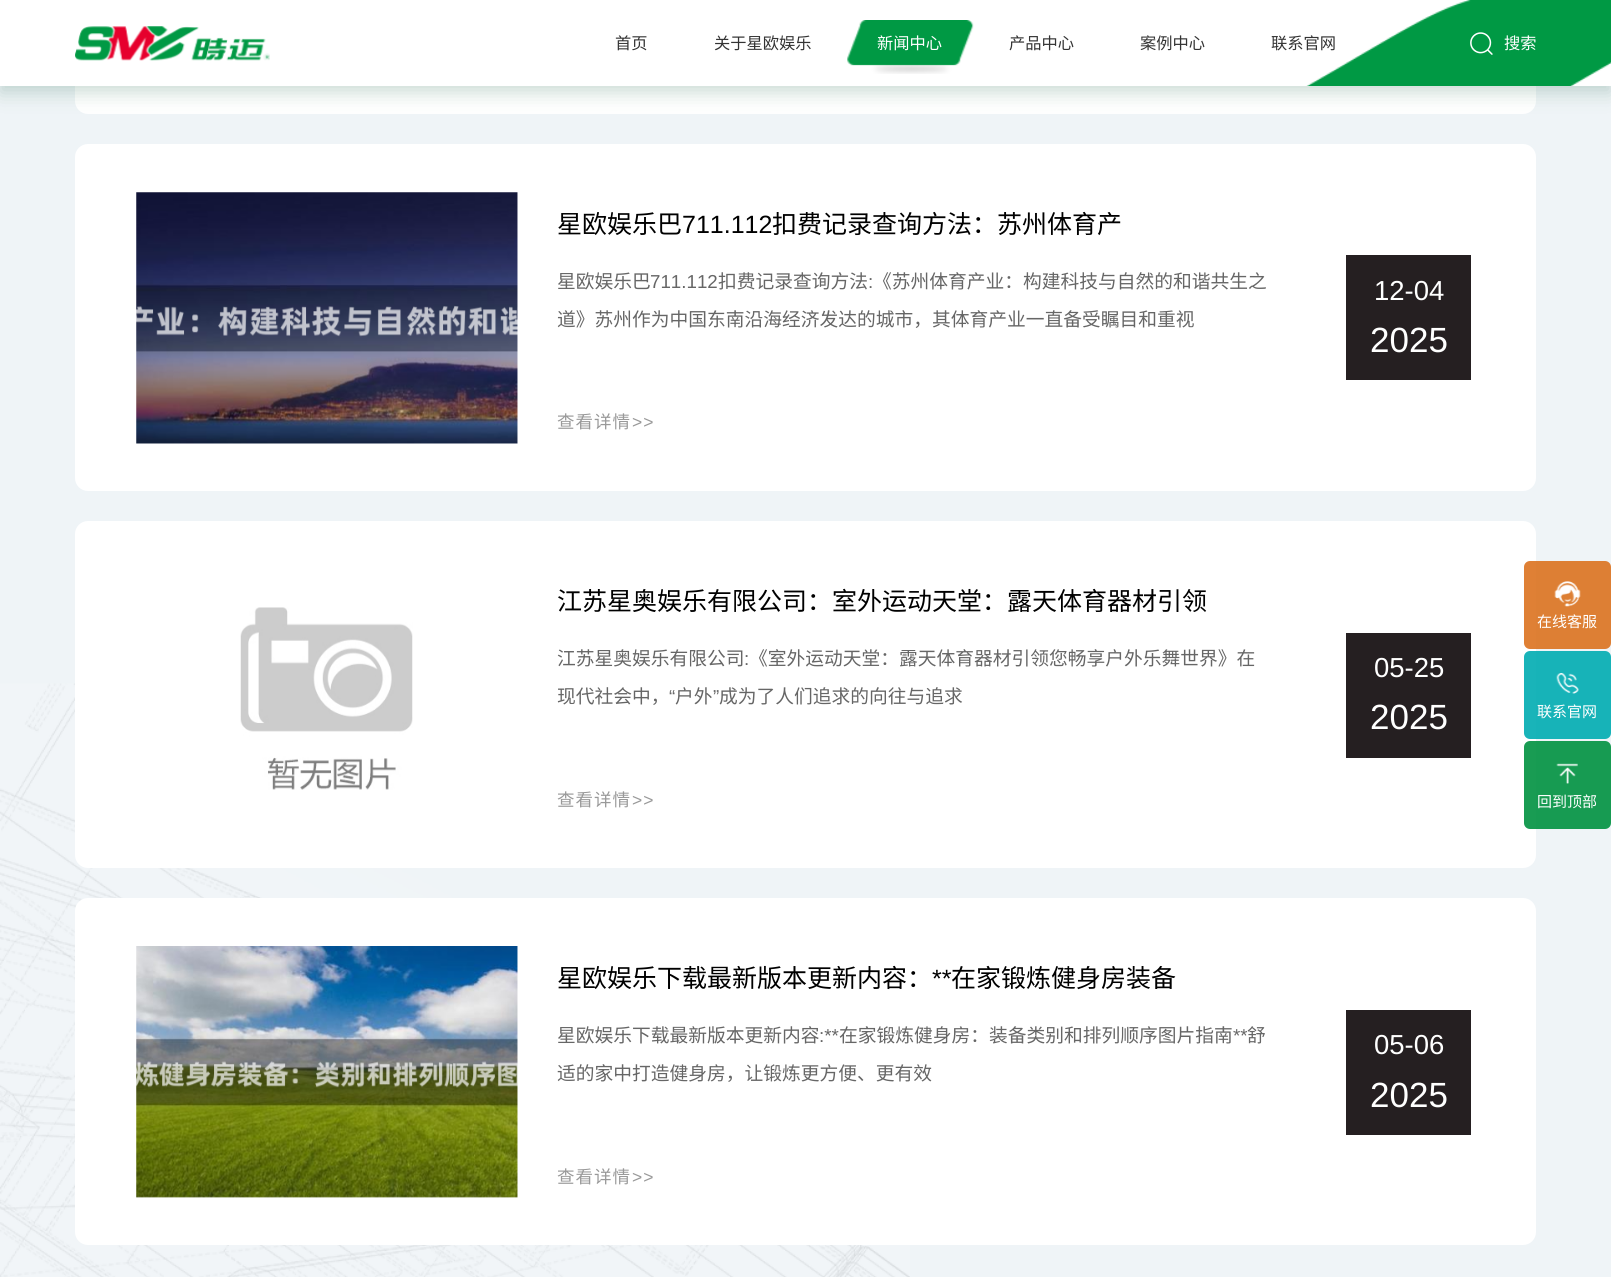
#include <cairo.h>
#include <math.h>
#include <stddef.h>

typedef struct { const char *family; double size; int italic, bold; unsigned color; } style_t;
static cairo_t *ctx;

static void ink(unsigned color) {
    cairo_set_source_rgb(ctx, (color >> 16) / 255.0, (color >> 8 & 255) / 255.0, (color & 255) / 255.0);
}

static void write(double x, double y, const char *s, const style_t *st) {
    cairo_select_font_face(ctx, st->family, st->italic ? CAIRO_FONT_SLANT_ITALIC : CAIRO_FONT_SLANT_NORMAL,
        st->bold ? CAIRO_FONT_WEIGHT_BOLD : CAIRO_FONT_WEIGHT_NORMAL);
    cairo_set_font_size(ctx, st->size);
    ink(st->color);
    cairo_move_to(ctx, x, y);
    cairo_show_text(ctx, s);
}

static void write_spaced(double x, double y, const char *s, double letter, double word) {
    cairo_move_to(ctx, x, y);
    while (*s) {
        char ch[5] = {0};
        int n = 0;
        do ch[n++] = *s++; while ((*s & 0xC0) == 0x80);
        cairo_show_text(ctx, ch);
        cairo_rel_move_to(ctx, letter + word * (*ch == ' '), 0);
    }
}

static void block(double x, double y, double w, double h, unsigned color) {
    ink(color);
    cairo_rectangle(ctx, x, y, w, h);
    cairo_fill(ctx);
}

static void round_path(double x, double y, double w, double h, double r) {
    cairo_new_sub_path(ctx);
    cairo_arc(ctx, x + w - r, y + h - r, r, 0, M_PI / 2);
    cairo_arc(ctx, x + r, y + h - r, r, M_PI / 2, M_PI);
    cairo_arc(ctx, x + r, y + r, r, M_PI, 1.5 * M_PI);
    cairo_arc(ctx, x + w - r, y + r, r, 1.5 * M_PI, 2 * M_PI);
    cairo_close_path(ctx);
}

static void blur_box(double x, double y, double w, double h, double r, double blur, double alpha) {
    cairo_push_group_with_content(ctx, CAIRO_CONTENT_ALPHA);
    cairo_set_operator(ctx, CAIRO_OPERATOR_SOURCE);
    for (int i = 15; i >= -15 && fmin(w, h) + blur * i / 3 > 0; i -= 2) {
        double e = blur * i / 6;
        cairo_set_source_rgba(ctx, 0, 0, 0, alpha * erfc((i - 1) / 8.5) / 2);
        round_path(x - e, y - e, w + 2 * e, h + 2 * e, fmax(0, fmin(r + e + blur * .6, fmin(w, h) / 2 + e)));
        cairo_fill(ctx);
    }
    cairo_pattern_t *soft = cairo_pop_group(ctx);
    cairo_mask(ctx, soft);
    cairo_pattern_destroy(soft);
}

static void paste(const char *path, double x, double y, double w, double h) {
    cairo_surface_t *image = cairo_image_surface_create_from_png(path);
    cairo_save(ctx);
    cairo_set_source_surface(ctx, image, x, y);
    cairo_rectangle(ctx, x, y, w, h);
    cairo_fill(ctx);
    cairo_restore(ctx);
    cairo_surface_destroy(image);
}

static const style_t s1 = {"Noto Sans CJK SC", 16.25, 0, 0, 0x333333};
static const style_t s2 = {"Noto Sans CJK SC", 16.25, 0, 0, 0xffffff};
static const style_t s3 = {"Noto Sans CJK SC", 25, 0, 0, 0x000000};
static const style_t s4 = {"Liberation Sans", 25, 0, 0, 0x000000};
static const style_t s5 = {"Noto Sans CJK SC", 18.75, 0, 0, 0x666666};
static const style_t s6 = {"Liberation Sans", 18.75, 0, 0, 0x666666};
static const style_t s7 = {"Liberation Sans", 27.5, 0, 0, 0xffffff};
static const style_t s8 = {"Liberation Sans", 35, 0, 0, 0xffffff};
static const style_t s9 = {"Noto Sans CJK SC", 15, 0, 0, 0xffffff};

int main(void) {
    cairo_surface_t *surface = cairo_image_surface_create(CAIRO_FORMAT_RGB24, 1611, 1277);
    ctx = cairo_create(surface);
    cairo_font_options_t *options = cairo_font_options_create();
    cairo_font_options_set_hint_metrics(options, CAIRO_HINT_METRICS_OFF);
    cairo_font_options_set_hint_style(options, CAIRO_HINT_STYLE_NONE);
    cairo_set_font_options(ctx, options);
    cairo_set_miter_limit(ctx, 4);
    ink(0xeff4f7);
    cairo_paint(ctx);
    ink(0xffffff);
    round_path(75, -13, 1461, 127, 13);
    cairo_fill(ctx);
    ink(0x01522e);
    blur_box(0, 6, 1611, 87, 0, 9.5, 0.2);
    block(0, 0, 1611, 86, 0xffffff);
    paste("pic1.png", 75, 26, 195, 35);
    paste("pic2.png", 1306, 0, 305, 86);
    write(615, 49, "首页", &s1);
    write(714, 49, "关于星欧娱乐", &s1);
    paste("pic3.png", 847, 20, 127, 54);
    write(877, 49, "新闻中心", &s2);
    write(1009, 49, "产品中心", &s1);
    write(1140, 49, "案例中心", &s1);
    write(1271, 49, "联系官网", &s1);
    paste("pic4.png", 1470, 32, 23, 23);
    write(1504, 49, "搜索", &s2);
    paste("pic5.png", 0, 683, 910, 594);
    round_path(75, 144, 1461, 347, 13);
    cairo_fill(ctx);
    paste("pic6.png", 136, 192, 382, 252);
    write(557, 233, "星欧娱乐巴", &s3);
    write(682, 233, "711.112", &s4);
    write(772, 233, "扣费记录查询方法：苏州体育产", &s3);
    write(557, 288, "星欧娱乐巴", &s5);
    write(650, 288, "711.112", &s6);
    write(718, 288, "扣费记录查询方法", &s5);
    write(868, 288, ":", &s6);
    write(873, 288, "《苏州体育产业：构建科技与自然的和谐共生之", &s5);
    write(557, 326, "道》苏州作为中国东南沿海经济发达的城市，其体育产业一直备受瞩目和重视", &s5);
    cairo_set_font_size(ctx, 17.5);
    ink(0x999999);
    write_spaced(557, 428, "查看详情", 1, 0);
    cairo_select_font_face(ctx, "Liberation Sans", CAIRO_FONT_SLANT_NORMAL, CAIRO_FONT_WEIGHT_NORMAL);
    write_spaced(632, 428, ">>", 1, 0);
    block(1346, 255, 125, 125, 0x251f21);
    write(1374, 300, "12-04", &s7);
    write(1370, 352, "2025", &s8);
    round_path(75, 521, 1461, 347, 13);
    cairo_fill(ctx);
    paste("pic7.png", 240, 607, 173, 183);
    write(557, 610, "江苏星奥娱乐有限公司：室外运动天堂：露天体育器材引领", &s3);
    write(557, 665, "江苏星奥娱乐有限公司", &s5);
    write(744, 665, ":", &s6);
    write(749, 665, "《室外运动天堂：露天体育器材引领您畅享户外乐舞世界》在", &s5);
    write(557, 703, "现代社会中，", &s5);
    write(669, 703, "“", &s6);
    write(675, 703, "户外", &s5);
    write(713, 703, "”", &s6);
    write(719, 703, "成为了人们追求的向往与追求", &s5);
    cairo_set_font_size(ctx, 17.5);
    ink(0x999999);
    write_spaced(557, 806, "查看详情", 1, 0);
    cairo_select_font_face(ctx, "Liberation Sans", CAIRO_FONT_SLANT_NORMAL, CAIRO_FONT_WEIGHT_NORMAL);
    write_spaced(632, 806, ">>", 1, 0);
    block(1346, 633, 125, 125, 0x251f21);
    write(1374, 677, "05-25", &s7);
    write(1370, 729, "2025", &s8);
    round_path(75, 898, 1461, 347, 13);
    cairo_fill(ctx);
    paste("pic8.png", 136, 946, 382, 252);
    write(557, 987, "星欧娱乐下载最新版本更新内容：", &s3);
    write(932, 987, "**", &s4);
    write(951, 987, "在家锻炼健身房装备", &s3);
    write(557, 1042, "星欧娱乐下载最新版本更新内容", &s5);
    write(819, 1042, ":**", &s6);
    write(839, 1042, "在家锻炼健身房：装备类别和排列顺序图片指南", &s5);
    write(1233, 1042, "**", &s6);
    write(1247, 1042, "舒", &s5);
    write(557, 1080, "适的家中打造健身房，让锻炼更方便、更有效", &s5);
    cairo_set_font_size(ctx, 17.5);
    ink(0x999999);
    write_spaced(557, 1183, "查看详情", 1, 0);
    cairo_select_font_face(ctx, "Liberation Sans", CAIRO_FONT_SLANT_NORMAL, CAIRO_FONT_WEIGHT_NORMAL);
    write_spaced(632, 1183, ">>", 1, 0);
    block(1346, 1010, 125, 125, 0x251f21);
    write(1374, 1054, "05-06", &s7);
    write(1370, 1107, "2025", &s8);
    cairo_set_source_rgba(ctx, 0.863, 0.451, 0.125, 0.9);
    round_path(1524, 561, 87, 88, 6);
    cairo_fill(ctx);
    paste("pic9.png", 1554, 581, 27, 26);
    write(1537, 627, "在线客服", &s9);
    cairo_set_source_rgba(ctx, 0, 0.675, 0.698, 0.9);
    round_path(1524, 651, 87, 88, 6);
    cairo_fill(ctx);
    paste("pic10.png", 1556, 673, 23, 21);
    write(1537, 717, "联系官网", &s9);
    cairo_set_source_rgba(ctx, 0, 0.569, 0.255, 0.9);
    round_path(1524, 741, 87, 88, 6);
    cairo_fill(ctx);
    paste("pic11.png", 1556, 763, 22, 21);
    write(1537, 807, "回到顶部", &s9);
    cairo_surface_write_to_png(surface, "screenshot.png");
    cairo_font_options_destroy(options);
    cairo_destroy(ctx);
    cairo_surface_destroy(surface);
    return 0;
}
